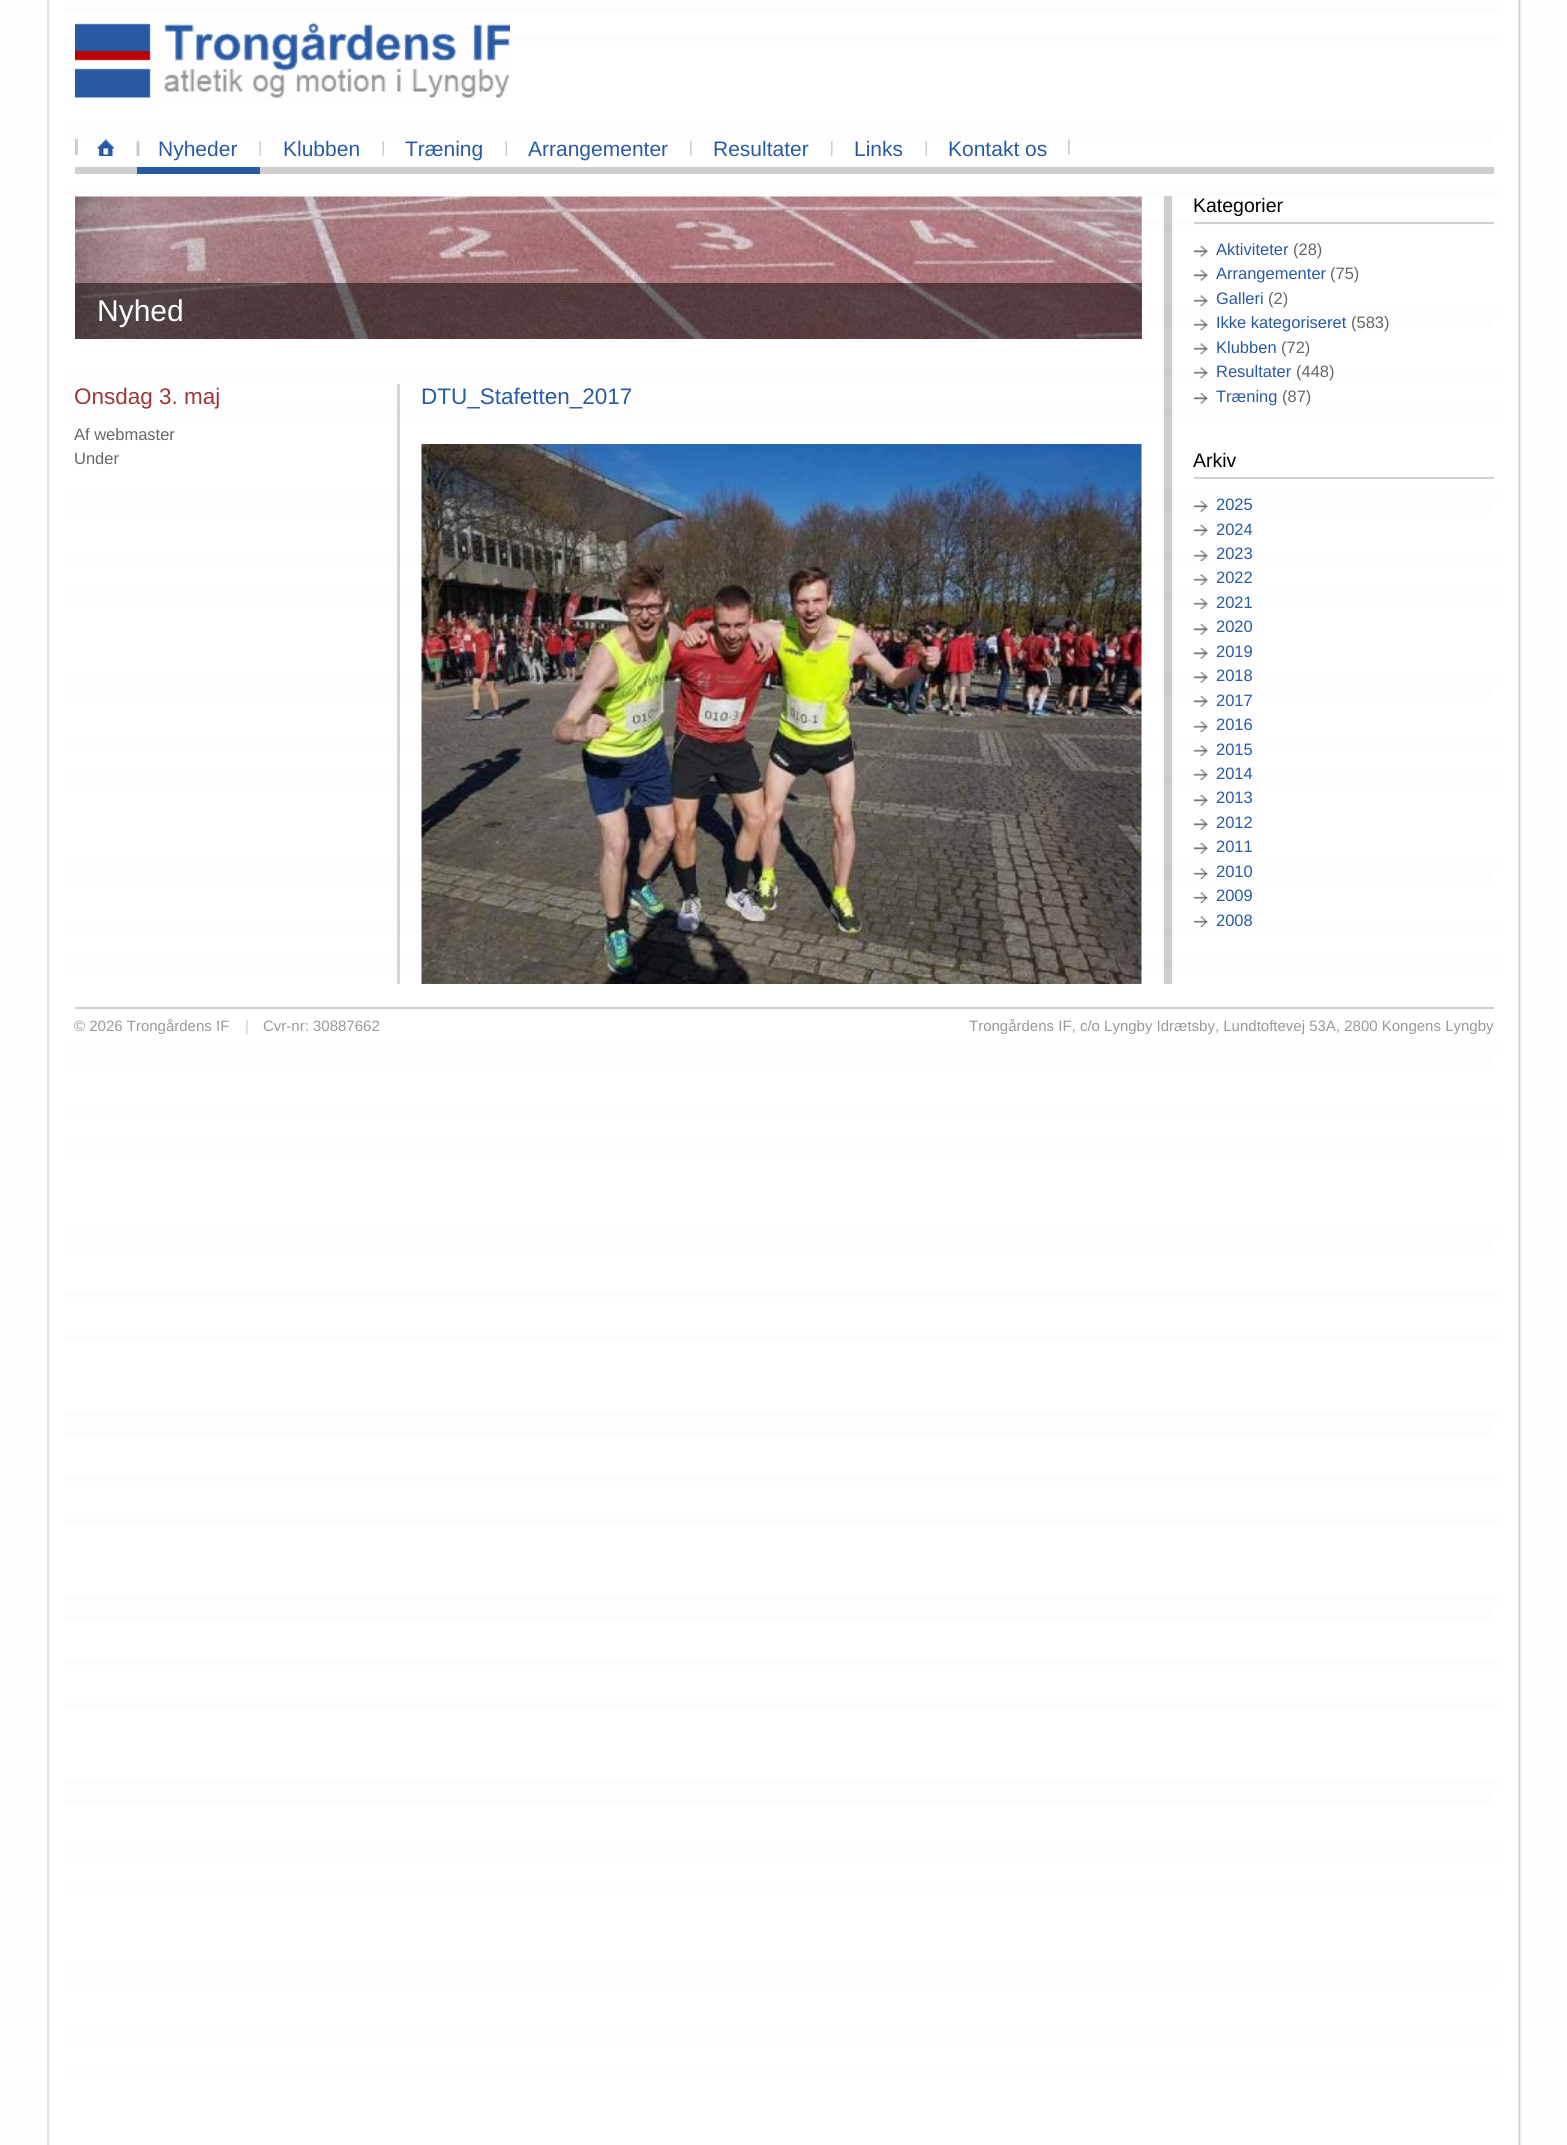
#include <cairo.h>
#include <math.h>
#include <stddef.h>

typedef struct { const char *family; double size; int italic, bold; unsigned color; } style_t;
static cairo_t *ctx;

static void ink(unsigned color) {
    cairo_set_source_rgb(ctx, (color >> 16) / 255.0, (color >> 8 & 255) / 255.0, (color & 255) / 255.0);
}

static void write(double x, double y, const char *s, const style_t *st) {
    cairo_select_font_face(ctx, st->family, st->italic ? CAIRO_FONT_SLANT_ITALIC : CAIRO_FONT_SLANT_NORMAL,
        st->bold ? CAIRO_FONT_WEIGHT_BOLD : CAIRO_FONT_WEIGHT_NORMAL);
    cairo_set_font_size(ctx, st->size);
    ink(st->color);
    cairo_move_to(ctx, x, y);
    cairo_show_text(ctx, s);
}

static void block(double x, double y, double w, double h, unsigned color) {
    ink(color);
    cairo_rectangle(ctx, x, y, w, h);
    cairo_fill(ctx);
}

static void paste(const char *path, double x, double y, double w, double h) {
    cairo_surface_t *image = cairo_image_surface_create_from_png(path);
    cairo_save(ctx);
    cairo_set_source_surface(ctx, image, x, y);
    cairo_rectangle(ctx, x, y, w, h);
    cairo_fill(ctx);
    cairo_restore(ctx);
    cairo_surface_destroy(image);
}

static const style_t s1 = {"Liberation Sans", 21, 0, 0, 0x285aa4};
static const style_t s2 = {"Liberation Sans", 19.5, 0, 0, 0x000000};
static const style_t s3 = {"Liberation Sans", 16.5, 0, 0, 0x285aa4};
static const style_t s4 = {"Liberation Sans", 16.5, 0, 0, 0x666666};
static const style_t s5 = {"Liberation Sans", 30, 0, 0, 0xffffff};
static const style_t s6 = {"Liberation Sans", 22.5, 0, 0, 0x9e3737};
static const style_t s7 = {"Liberation Sans", 22.5, 0, 0, 0x285aa4};
static const style_t s8 = {"Liberation Sans", 15, 0, 0, 0x999999};
static const style_t s9 = {"Liberation Sans", 15, 0, 0, 0xcccccc};

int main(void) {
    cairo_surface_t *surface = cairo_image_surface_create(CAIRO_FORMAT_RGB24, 1567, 2145);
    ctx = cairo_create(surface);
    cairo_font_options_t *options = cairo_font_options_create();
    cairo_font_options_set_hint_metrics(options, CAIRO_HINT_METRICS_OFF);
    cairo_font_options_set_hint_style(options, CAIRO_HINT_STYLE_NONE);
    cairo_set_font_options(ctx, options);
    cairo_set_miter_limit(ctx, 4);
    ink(0xffffff);
    cairo_paint(ctx);
    paste("pic1.png", 0, 0, 1567, 2145);
    paste("pic2.png", 75, 22, 435, 76);
    block(75, 139, 3, 16, 0xcccccc);
    block(75, 167, 1419, 7, 0xcfcfcf);
    paste("pic3.png", 1068, 139, 2, 16);
    paste("pic4.png", 97, 139, 17, 17);
    paste("pic5.png", 1068, 139, 2, 16);
    paste("pic6.png", 136, 140, 4, 16);
    block(137, 167, 123, 7, 0x285aa4);
    write(158, 156, "Nyheder", &s1);
    paste("pic7.png", 259, 140, 2, 16);
    write(283, 156, "Klubben", &s1);
    paste("pic7.png", 382, 140, 2, 16);
    write(405, 156, "Træning", &s1);
    paste("pic7.png", 505, 140, 2, 16);
    write(528, 156, "Arrangementer", &s1);
    paste("pic8.png", 690, 140, 2, 16);
    write(713, 156, "Resultater", &s1);
    paste("pic8.png", 831, 140, 2, 16);
    write(854, 156, "Links", &s1);
    paste("pic7.png", 925, 140, 2, 16);
    write(948, 156, "Kontakt os", &s1);
    block(1164, 196, 8, 788, 0xcccccc);
    block(1141, 197, 1, 142, 0xcfcfcf);
    paste("pic9.png", 75, 196, 1067, 143);
    block(1194, 222, 300, 2, 0xcfcfcf);
    write(1193, 212, "Kategorier", &s2);
    paste("pic10.png", 1194, 245, 14, 12);
    write(1216, 255, "Aktiviteter", &s3);
    write(1293, 255, "(28)", &s4);
    paste("pic10.png", 1194, 269, 14, 12);
    write(1216, 279, "Arrangementer", &s3);
    write(1330, 279, "(75)", &s4);
    paste("pic11.png", 1194, 295, 14, 11);
    write(1216, 304, "Galleri", &s3);
    write(1268, 304, "(2)", &s4);
    paste("pic12.png", 1194, 319, 14, 11);
    write(1216, 328, "Ikke kategoriseret", &s3);
    write(1351, 328, "(583)", &s4);
    paste("pic13.png", 1194, 343, 14, 11);
    write(1216, 353, "Klubben", &s3);
    write(1281, 353, "(72)", &s4);
    paste("pic14.png", 1194, 367, 14, 11);
    write(1216, 377, "Resultater", &s3);
    write(1296, 377, "(448)", &s4);
    paste("pic10.png", 1194, 392, 14, 12);
    write(1216, 402, "Træning", &s3);
    write(1282, 402, "(87)", &s4);
    block(1194, 477, 300, 2, 0xcfcfcf);
    write(1193, 467, "Arkiv", &s2);
    paste("pic15.png", 1194, 500, 14, 12);
    write(1216, 510, "2025", &s3);
    paste("pic10.png", 1194, 524, 14, 12);
    write(1216, 535, "2024", &s3);
    paste("pic16.png", 1194, 550, 14, 11);
    write(1216, 559, "2023", &s3);
    paste("pic13.png", 1194, 574, 14, 11);
    write(1216, 583, "2022", &s3);
    paste("pic17.png", 1194, 598, 14, 11);
    write(1216, 608, "2021", &s3);
    paste("pic10.png", 1194, 623, 14, 12);
    write(1216, 632, "2020", &s3);
    paste("pic10.png", 1194, 647, 14, 12);
    write(1216, 657, "2019", &s3);
    paste("pic18.png", 1194, 671, 14, 12);
    write(1216, 681, "2018", &s3);
    paste("pic19.png", 1194, 695, 14, 12);
    write(1216, 706, "2017", &s3);
    paste("pic13.png", 1194, 721, 14, 11);
    write(1216, 730, "2016", &s3);
    paste("pic20.png", 1194, 745, 14, 11);
    write(1216, 755, "2015", &s3);
    paste("pic21.png", 1194, 769, 14, 11);
    write(1216, 779, "2014", &s3);
    paste("pic10.png", 1194, 794, 14, 12);
    write(1216, 803, "2013", &s3);
    paste("pic10.png", 1194, 818, 14, 12);
    write(1216, 828, "2012", &s3);
    paste("pic10.png", 1194, 842, 14, 12);
    write(1216, 852, "2011", &s3);
    paste("pic22.png", 1194, 868, 14, 11);
    write(1216, 877, "2010", &s3);
    paste("pic13.png", 1194, 892, 14, 11);
    write(1216, 901, "2009", &s3);
    paste("pic23.png", 1194, 916, 14, 11);
    write(1216, 926, "2008", &s3);
    cairo_set_source_rgba(ctx, 0, 0, 0, 0.5);
    cairo_rectangle(ctx, 75, 283, 1067, 56);
    cairo_fill(ctx);
    write(97, 321, "Nyhed", &s5);
    block(397, 384, 3, 600, 0xd4d4d4);
    write(74, 404, "Onsdag 3. maj", &s6);
    write(74, 440, "Af webmaster", &s4);
    write(74, 464, "Under", &s4);
    write(421, 404, "DTU_Stafetten_2017", &s7);
    paste("pic24.png", 421, 444, 721, 540);
    block(75, 1007, 1419, 2, 0xcfcfcf);
    write(74, 1031, "© 2026 Trongårdens IF", &s8);
    write(245, 1031, "|", &s9);
    write(263, 1031, "Cvr-nr: 30887662", &s8);
    write(969, 1031, "Trongårdens IF, c/o Lyngby Idrætsby, Lundtoftevej 53A, 2800 Kongens Lyngby", &s8);
    cairo_surface_write_to_png(surface, "screenshot.png");
    cairo_font_options_destroy(options);
    cairo_destroy(ctx);
    cairo_surface_destroy(surface);
    return 0;
}
